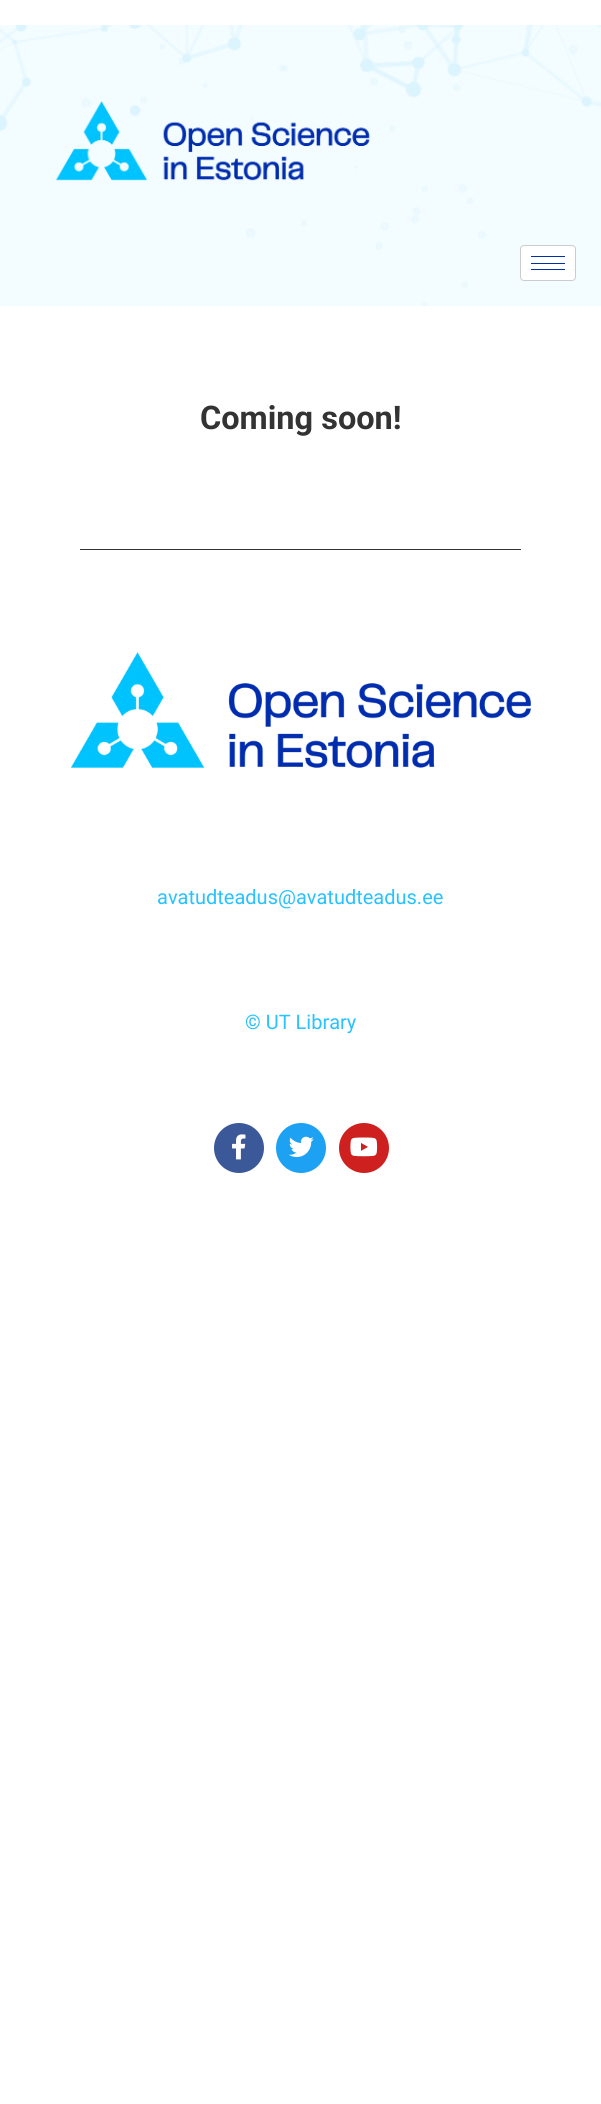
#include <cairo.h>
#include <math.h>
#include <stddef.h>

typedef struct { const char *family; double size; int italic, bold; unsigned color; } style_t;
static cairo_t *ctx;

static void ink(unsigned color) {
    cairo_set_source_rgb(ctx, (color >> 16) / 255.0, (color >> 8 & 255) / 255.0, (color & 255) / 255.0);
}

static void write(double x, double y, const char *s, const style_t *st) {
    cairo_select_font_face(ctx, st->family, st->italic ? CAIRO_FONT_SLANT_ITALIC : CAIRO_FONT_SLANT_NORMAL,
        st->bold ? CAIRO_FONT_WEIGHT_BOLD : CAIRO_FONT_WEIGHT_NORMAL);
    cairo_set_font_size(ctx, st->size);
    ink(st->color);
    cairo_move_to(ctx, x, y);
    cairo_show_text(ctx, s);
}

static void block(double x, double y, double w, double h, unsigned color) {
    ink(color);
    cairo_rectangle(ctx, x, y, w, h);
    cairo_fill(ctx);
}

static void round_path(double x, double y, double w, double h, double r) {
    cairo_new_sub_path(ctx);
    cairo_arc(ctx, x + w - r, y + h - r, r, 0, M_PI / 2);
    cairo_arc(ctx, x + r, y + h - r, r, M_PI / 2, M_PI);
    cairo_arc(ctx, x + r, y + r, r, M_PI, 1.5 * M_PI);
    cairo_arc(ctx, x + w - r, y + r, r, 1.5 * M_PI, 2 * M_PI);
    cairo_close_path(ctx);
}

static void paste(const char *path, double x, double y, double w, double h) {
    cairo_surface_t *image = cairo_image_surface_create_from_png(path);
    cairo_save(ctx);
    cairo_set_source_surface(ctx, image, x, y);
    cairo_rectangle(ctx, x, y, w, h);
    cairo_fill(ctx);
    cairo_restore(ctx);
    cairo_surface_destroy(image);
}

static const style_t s1 = {"Roboto", 32.5, 0, 1, 0x333333};
static const style_t s2 = {"Roboto", 20, 0, 0, 0x27c2ff};

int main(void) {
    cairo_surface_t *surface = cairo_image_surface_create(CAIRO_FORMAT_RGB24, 601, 2104);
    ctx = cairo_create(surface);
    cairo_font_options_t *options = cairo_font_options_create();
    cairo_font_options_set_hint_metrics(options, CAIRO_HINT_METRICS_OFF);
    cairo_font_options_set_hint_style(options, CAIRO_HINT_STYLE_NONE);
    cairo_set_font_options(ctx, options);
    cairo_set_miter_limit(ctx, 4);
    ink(0xffffff);
    cairo_paint(ctx);
    block(0, 25, 601, 281, 0xf3fcff);
    paste("pic1.png", 0, 25, 601, 281);
    paste("pic2.png", 56, 101, 314, 80);
    ink(0xffffff);
    round_path(520, 245, 56, 36, 4);
    cairo_fill(ctx);
    round_path(520.5, 245.5, 55, 35, 3.5);
    cairo_set_source_rgba(ctx, 0, 0, 0, 0.2);
    cairo_set_line_width(ctx, 1);
    cairo_stroke(ctx);
    block(531, 256, 34, 1, 0x0030a8);
    block(531, 263, 34, 1, 0x0030a8);
    block(531, 269, 34, 1, 0x0030a8);
    write(200, 429, "Coming soon!", &s1);
    block(80, 549, 441, 1, 0x333333);
    paste("pic3.png", 71, 652, 460, 116);
    write(157, 904, "avatudteadus@avatudteadus.ee", &s2);
    write(245, 1029, "© UT Library", &s2);
    ink(0x3b5998);
    cairo_new_path(ctx);
    cairo_arc(ctx, 239, 1148, 25, 0, 2 * M_PI);
    cairo_fill(ctx);
    paste("pic4.png", 232, 1134, 14, 26);
    ink(0x1da1f2);
    cairo_arc(ctx, 301, 1148, 25, 0, 2 * M_PI);
    cairo_fill(ctx);
    paste("pic5.png", 289, 1136, 25, 21);
    ink(0xcd201f);
    cairo_arc(ctx, 364, 1148, 25, 0, 2 * M_PI);
    cairo_fill(ctx);
    paste("pic6.png", 350, 1137, 28, 20);
    cairo_surface_write_to_png(surface, "screenshot.png");
    cairo_font_options_destroy(options);
    cairo_destroy(ctx);
    cairo_surface_destroy(surface);
    return 0;
}
